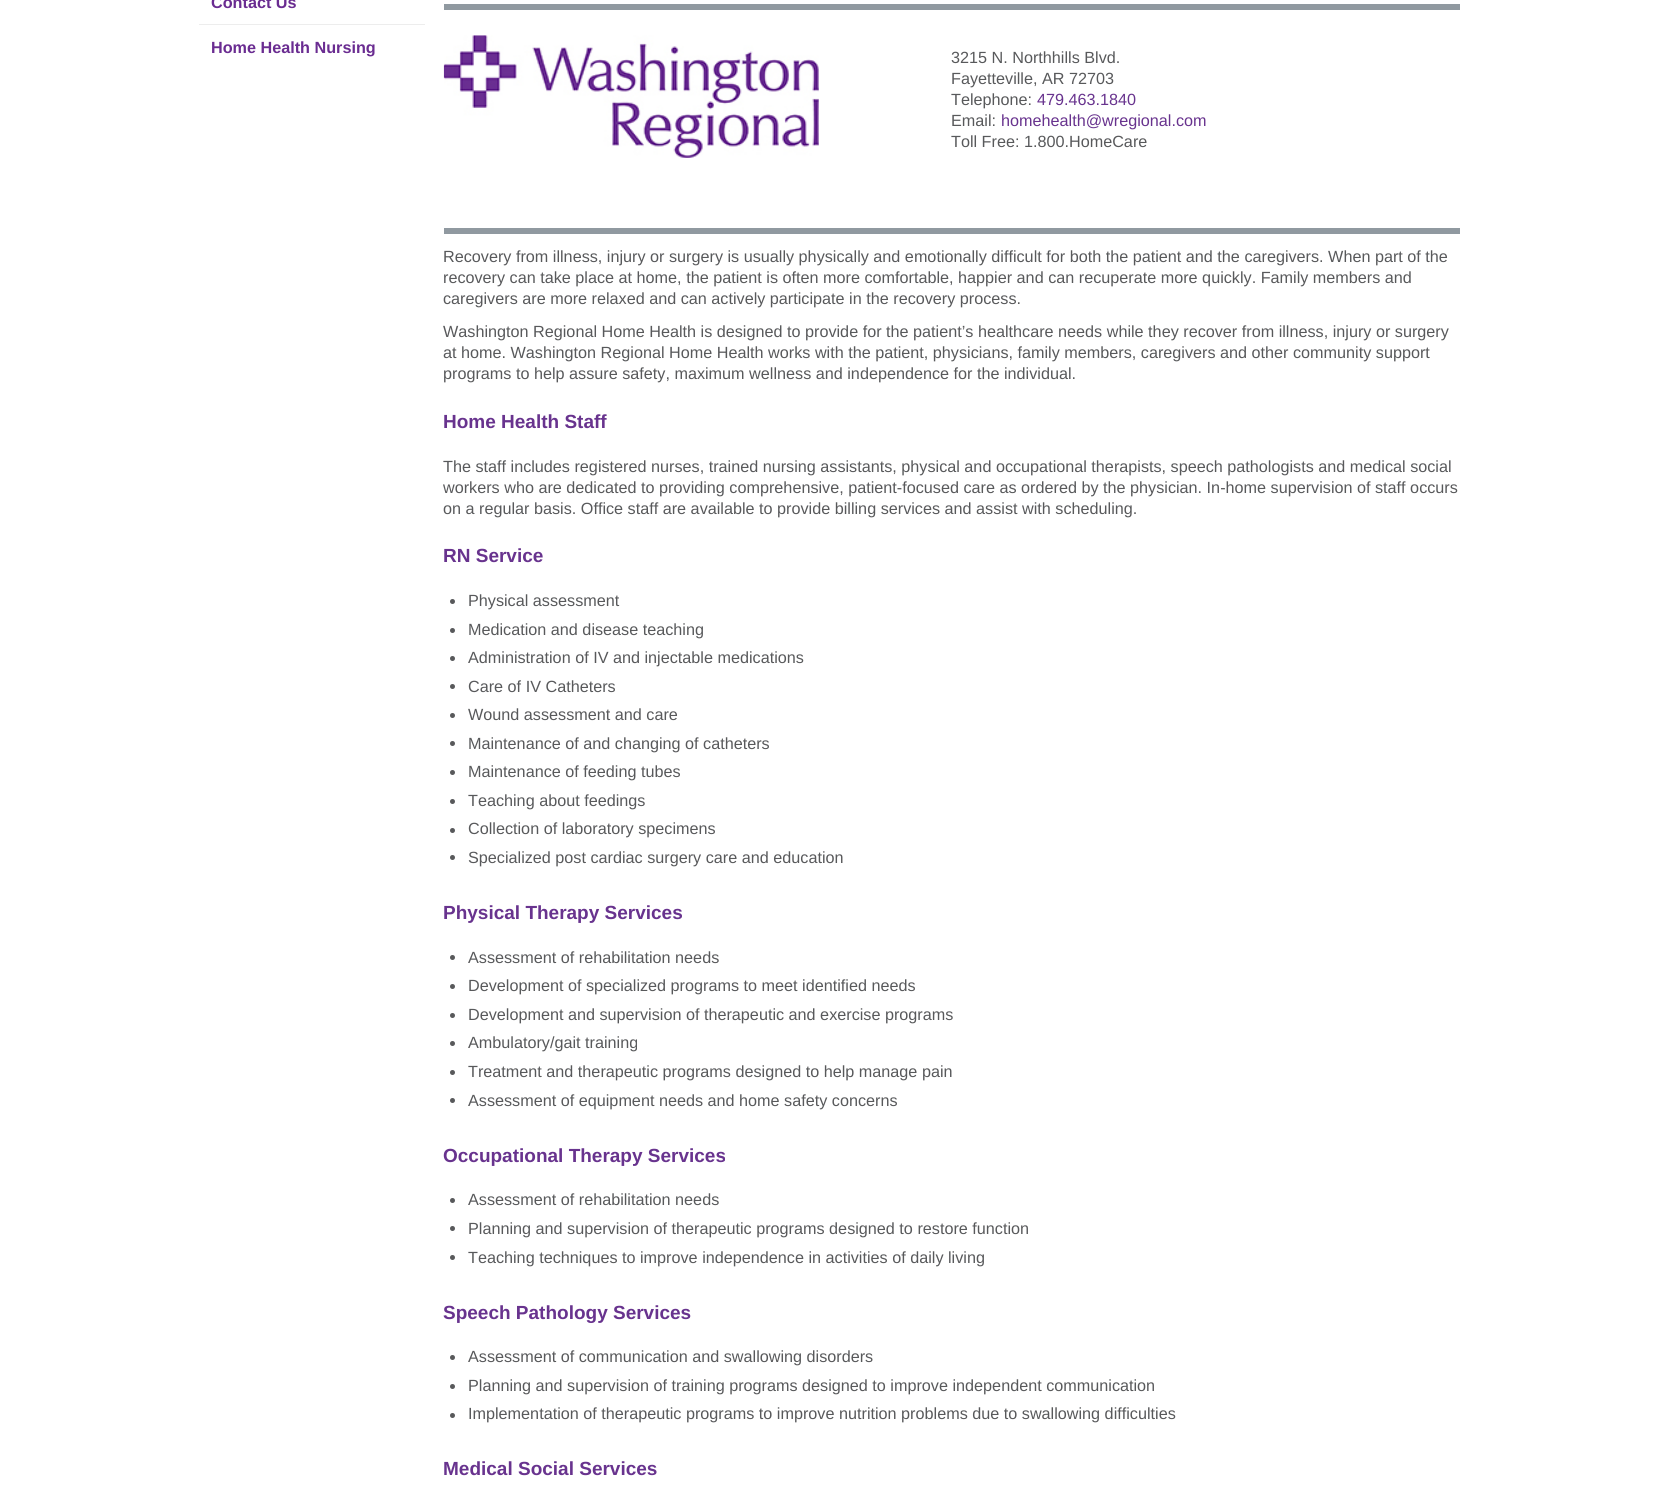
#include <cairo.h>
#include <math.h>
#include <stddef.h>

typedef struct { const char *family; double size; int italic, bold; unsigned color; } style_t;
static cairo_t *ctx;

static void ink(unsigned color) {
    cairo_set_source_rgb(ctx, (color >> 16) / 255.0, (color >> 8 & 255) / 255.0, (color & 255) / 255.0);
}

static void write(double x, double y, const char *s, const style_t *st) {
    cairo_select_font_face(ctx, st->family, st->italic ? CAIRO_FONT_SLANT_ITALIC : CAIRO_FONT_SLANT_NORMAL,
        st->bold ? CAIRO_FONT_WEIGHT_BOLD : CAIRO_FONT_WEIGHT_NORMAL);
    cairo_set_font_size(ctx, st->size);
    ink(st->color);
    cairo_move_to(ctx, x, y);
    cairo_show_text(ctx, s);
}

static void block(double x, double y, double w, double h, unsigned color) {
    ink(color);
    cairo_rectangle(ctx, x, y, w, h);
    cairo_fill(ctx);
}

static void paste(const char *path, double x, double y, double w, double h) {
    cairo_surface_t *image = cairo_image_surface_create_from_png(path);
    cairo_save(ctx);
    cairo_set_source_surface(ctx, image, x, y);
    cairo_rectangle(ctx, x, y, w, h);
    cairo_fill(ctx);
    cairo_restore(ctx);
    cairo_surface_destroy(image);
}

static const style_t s1 = {"Liberation Sans", 16.2, 0, 1, 0x6a2c91};
static const style_t s2 = {"Liberation Sans", 16.2, 0, 0, 0x58595b};
static const style_t s3 = {"Liberation Sans", 16.2, 0, 0, 0x68338e};
static const style_t s4 = {"Liberation Sans", 19, 0, 1, 0x68338e};

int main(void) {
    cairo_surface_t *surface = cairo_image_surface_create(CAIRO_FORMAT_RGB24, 1676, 1491);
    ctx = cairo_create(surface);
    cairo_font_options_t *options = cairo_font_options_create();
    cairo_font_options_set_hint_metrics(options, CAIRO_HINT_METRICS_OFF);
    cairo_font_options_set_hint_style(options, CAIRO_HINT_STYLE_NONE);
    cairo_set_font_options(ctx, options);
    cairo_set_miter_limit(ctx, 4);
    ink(0xffffff);
    cairo_paint(ctx);
    block(199, 24, 226, 1, 0xededed);
    write(211, 8, "Contact Us", &s1);
    write(211, 53, "Home Health Nursing", &s1);
    block(444, 4, 1016, 6, 0x9099a0);
    paste("pic1.png", 443, 35, 376, 123);
    write(951, 63, "3215 N. Northhills Blvd.", &s2);
    write(951, 84, "Fayetteville, AR 72703", &s2);
    write(951, 105, "Telephone:", &s2);
    write(1037, 105, "479.463.1840", &s3);
    write(951, 126, "Email:", &s2);
    write(1001, 126, "homehealth@wregional.com", &s3);
    write(951, 147, "Toll Free: 1.800.HomeCare", &s2);
    block(444, 228, 1016, 6, 0x9099a0);
    write(443, 262, "Recovery from illness, injury or surgery is usually physically and emotionally difficult for both the patient and the caregivers. When part of the", &s2);
    write(443, 283, "recovery can take place at home, the patient is often more comfortable, happier and can recuperate more quickly. Family members and", &s2);
    write(443, 304, "caregivers are more relaxed and can actively participate in the recovery process.", &s2);
    write(443, 337, "Washington Regional Home Health is designed to provide for the patient’s healthcare needs while they recover from illness, injury or surgery", &s2);
    write(443, 358, "at home. Washington Regional Home Health works with the patient, physicians, family members, caregivers and other community support", &s2);
    write(443, 379, "programs to help assure safety, maximum wellness and independence for the individual.", &s2);
    write(443, 428, "Home Health Staff", &s4);
    write(443, 472, "The staff includes registered nurses, trained nursing assistants, physical and occupational therapists, speech pathologists and medical social", &s2);
    write(443, 493, "workers who are dedicated to providing comprehensive, patient-focused care as ordered by the physician. In-home supervision of staff occurs", &s2);
    write(443, 514, "on a regular basis. Office staff are available to provide billing services and assist with scheduling.", &s2);
    write(443, 562, "RN Service", &s4);
    ink(0x58595b);
    cairo_new_path(ctx);
    cairo_arc(ctx, 452.5, 601.5, 2.5, 0, 2 * M_PI);
    cairo_fill(ctx);
    write(468, 606, "Physical assessment", &s2);
    cairo_new_path(ctx);
    cairo_arc(ctx, 452.5, 630.5, 2.5, 0, 2 * M_PI);
    cairo_fill(ctx);
    write(468, 635, "Medication and disease teaching", &s2);
    cairo_new_path(ctx);
    cairo_arc(ctx, 452.5, 658.5, 2.5, 0, 2 * M_PI);
    cairo_fill(ctx);
    write(468, 663, "Administration of IV and injectable medications", &s2);
    cairo_new_path(ctx);
    cairo_arc(ctx, 452.5, 686.5, 2.5, 0, 2 * M_PI);
    cairo_fill(ctx);
    write(468, 692, "Care of IV Catheters", &s2);
    cairo_new_path(ctx);
    cairo_arc(ctx, 452.5, 715.5, 2.5, 0, 2 * M_PI);
    cairo_fill(ctx);
    write(468, 720, "Wound assessment and care", &s2);
    cairo_new_path(ctx);
    cairo_arc(ctx, 452.5, 743.5, 2.5, 0, 2 * M_PI);
    cairo_fill(ctx);
    write(468, 749, "Maintenance of and changing of catheters", &s2);
    cairo_new_path(ctx);
    cairo_arc(ctx, 452.5, 772.5, 2.5, 0, 2 * M_PI);
    cairo_fill(ctx);
    write(468, 777, "Maintenance of feeding tubes", &s2);
    cairo_new_path(ctx);
    cairo_arc(ctx, 452.5, 801.5, 2.5, 0, 2 * M_PI);
    cairo_fill(ctx);
    write(468, 806, "Teaching about feedings", &s2);
    cairo_new_path(ctx);
    cairo_arc(ctx, 452.5, 830.5, 2.5, 0, 2 * M_PI);
    cairo_fill(ctx);
    write(468, 834, "Collection of laboratory specimens", &s2);
    cairo_new_path(ctx);
    cairo_arc(ctx, 452.5, 857.5, 2.5, 0, 2 * M_PI);
    cairo_fill(ctx);
    write(468, 863, "Specialized post cardiac surgery care and education", &s2);
    write(443, 919, "Physical Therapy Services", &s4);
    ink(0x58595b);
    cairo_new_path(ctx);
    cairo_arc(ctx, 452.5, 957.5, 2.5, 0, 2 * M_PI);
    cairo_fill(ctx);
    write(468, 963, "Assessment of rehabilitation needs", &s2);
    cairo_new_path(ctx);
    cairo_arc(ctx, 452.5, 986.5, 2.5, 0, 2 * M_PI);
    cairo_fill(ctx);
    write(468, 991, "Development of specialized programs to meet identified needs", &s2);
    cairo_new_path(ctx);
    cairo_arc(ctx, 452.5, 1015.5, 2.5, 0, 2 * M_PI);
    cairo_fill(ctx);
    write(468, 1020, "Development and supervision of therapeutic and exercise programs", &s2);
    cairo_new_path(ctx);
    cairo_arc(ctx, 452.5, 1043.5, 2.5, 0, 2 * M_PI);
    cairo_fill(ctx);
    write(468, 1048, "Ambulatory/gait training", &s2);
    cairo_new_path(ctx);
    cairo_arc(ctx, 452.5, 1072.5, 2.5, 0, 2 * M_PI);
    cairo_fill(ctx);
    write(468, 1077, "Treatment and therapeutic programs designed to help manage pain", &s2);
    cairo_new_path(ctx);
    cairo_arc(ctx, 452.5, 1100.5, 2.5, 0, 2 * M_PI);
    cairo_fill(ctx);
    write(468, 1106, "Assessment of equipment needs and home safety concerns", &s2);
    write(443, 1162, "Occupational Therapy Services", &s4);
    ink(0x58595b);
    cairo_new_path(ctx);
    cairo_arc(ctx, 452.5, 1200.5, 2.5, 0, 2 * M_PI);
    cairo_fill(ctx);
    write(468, 1205, "Assessment of rehabilitation needs", &s2);
    cairo_new_path(ctx);
    cairo_arc(ctx, 452.5, 1228.5, 2.5, 0, 2 * M_PI);
    cairo_fill(ctx);
    write(468, 1234, "Planning and supervision of therapeutic programs designed to restore function", &s2);
    cairo_new_path(ctx);
    cairo_arc(ctx, 452.5, 1257.5, 2.5, 0, 2 * M_PI);
    cairo_fill(ctx);
    write(468, 1263, "Teaching techniques to improve independence in activities of daily living", &s2);
    write(443, 1319, "Speech Pathology Services", &s4);
    ink(0x58595b);
    cairo_new_path(ctx);
    cairo_arc(ctx, 452.5, 1357.5, 2.5, 0, 2 * M_PI);
    cairo_fill(ctx);
    write(468, 1362, "Assessment of communication and swallowing disorders", &s2);
    cairo_new_path(ctx);
    cairo_arc(ctx, 452.5, 1386.5, 2.5, 0, 2 * M_PI);
    cairo_fill(ctx);
    write(468, 1391, "Planning and supervision of training programs designed to improve independent communication", &s2);
    cairo_new_path(ctx);
    cairo_arc(ctx, 452.5, 1415.5, 2.5, 0, 2 * M_PI);
    cairo_fill(ctx);
    write(468, 1419, "Implementation of therapeutic programs to improve nutrition problems due to swallowing difficulties", &s2);
    write(443, 1475, "Medical Social Services", &s4);
    cairo_surface_write_to_png(surface, "screenshot.png");
    cairo_font_options_destroy(options);
    cairo_destroy(ctx);
    cairo_surface_destroy(surface);
    return 0;
}
